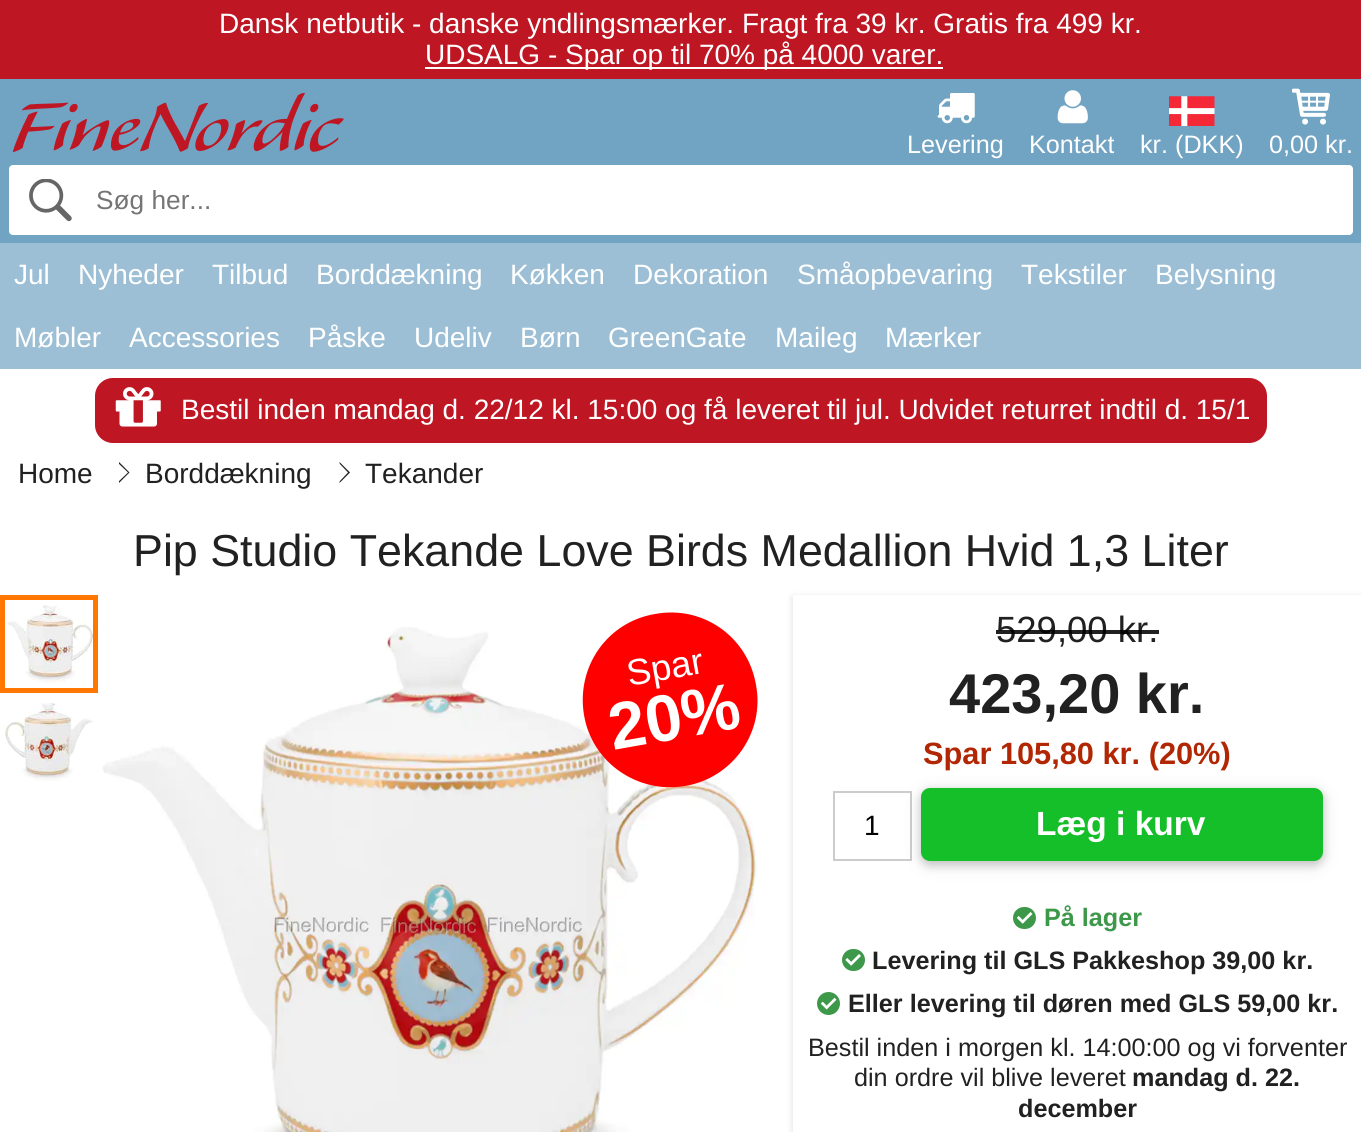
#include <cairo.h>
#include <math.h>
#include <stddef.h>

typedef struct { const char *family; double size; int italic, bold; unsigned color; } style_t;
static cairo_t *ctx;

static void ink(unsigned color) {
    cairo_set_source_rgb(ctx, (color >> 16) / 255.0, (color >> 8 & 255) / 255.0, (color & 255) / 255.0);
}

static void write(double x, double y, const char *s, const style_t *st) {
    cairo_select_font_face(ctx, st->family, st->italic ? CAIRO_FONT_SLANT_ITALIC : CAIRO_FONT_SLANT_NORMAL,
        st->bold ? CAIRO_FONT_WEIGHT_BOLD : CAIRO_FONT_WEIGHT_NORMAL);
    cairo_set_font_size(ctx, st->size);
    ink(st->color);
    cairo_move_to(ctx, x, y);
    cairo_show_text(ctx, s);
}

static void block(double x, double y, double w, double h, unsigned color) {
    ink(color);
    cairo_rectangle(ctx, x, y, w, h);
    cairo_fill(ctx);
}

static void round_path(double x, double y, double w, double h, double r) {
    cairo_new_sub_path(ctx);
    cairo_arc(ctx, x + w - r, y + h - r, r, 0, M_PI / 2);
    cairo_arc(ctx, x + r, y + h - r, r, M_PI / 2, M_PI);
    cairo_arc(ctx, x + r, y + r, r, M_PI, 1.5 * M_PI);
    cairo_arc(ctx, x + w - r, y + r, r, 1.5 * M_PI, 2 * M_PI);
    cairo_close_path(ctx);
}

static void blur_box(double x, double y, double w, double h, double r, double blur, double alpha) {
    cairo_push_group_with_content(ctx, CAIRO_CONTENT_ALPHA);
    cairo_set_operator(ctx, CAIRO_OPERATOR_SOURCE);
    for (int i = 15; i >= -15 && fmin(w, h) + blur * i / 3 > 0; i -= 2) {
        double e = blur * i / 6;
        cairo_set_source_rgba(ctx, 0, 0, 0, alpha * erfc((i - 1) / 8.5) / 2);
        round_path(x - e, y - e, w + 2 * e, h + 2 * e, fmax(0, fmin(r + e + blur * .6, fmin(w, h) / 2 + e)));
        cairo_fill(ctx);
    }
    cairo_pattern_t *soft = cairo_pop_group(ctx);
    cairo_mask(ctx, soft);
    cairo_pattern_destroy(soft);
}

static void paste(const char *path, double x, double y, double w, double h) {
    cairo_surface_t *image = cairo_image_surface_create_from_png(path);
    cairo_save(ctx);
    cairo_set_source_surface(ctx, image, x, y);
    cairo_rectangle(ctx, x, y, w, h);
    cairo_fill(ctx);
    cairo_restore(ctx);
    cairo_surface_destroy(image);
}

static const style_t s1 = {"Liberation Sans", 28, 0, 0, 0xffffff};
static const style_t s2 = {"Liberation Sans", 25.2, 0, 0, 0xffffff};
static const style_t s3 = {"Liberation Sans", 26.25, 0, 0, 0x757575};
static const style_t s4 = {"Liberation Sans", 28, 0, 0, 0x212121};
static const style_t s5 = {"Liberation Sans", 44.8, 0, 0, 0x212121};
static const style_t s6 = {"Liberation Sans", 36.5, 0, 0, 0xffffff};
static const style_t s7 = {"Liberation Sans", 66, 0, 1, 0xffffff};
static const style_t s8 = {"Liberation Sans", 36.5, 0, 0, 0x212121};
static const style_t s9 = {"Liberation Sans", 56, 0, 1, 0x212121};
static const style_t s10 = {"Liberation Sans", 30.75, 0, 1, 0xb12704};
static const style_t s11 = {"Liberation Sans", 28, 0, 0, 0x000000};
static const style_t s12 = {"Liberation Sans", 33.5, 0, 1, 0xffffff};
static const style_t s13 = {"Liberation Sans", 25.2, 0, 1, 0x3d984a};
static const style_t s14 = {"Liberation Sans", 25.2, 0, 1, 0x212121};
static const style_t s15 = {"Liberation Sans", 25.2, 0, 0, 0x212121};

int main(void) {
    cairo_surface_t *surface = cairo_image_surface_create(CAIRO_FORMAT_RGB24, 1361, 1132);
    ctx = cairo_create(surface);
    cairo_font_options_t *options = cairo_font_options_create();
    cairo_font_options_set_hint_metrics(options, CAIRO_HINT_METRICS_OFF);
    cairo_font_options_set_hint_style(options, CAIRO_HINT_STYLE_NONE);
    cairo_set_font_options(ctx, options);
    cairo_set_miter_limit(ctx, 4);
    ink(0xffffff);
    cairo_paint(ctx);
    block(0, 0, 1361, 79, 0xbe1622);
    write(219, 33, "Dansk netbutik - danske yndlingsmærker. Fragt fra 39 kr. Gratis fra 499 kr.", &s1);
    block(425, 67, 518, 2, 0xffffff);
    write(425, 64, "UDSALG - Spar op til 70% på 4000 varer.", &s1);
    block(0, 79, 1361, 164, 0x71a3c3);
    paste("pic1.png", 937, 93, 38, 31);
    write(907, 153, "Levering", &s2);
    paste("pic2.png", 1057, 90, 31, 34);
    write(1029, 153, "Kontakt", &s2);
    paste("pic3.png", 1169, 96, 46, 30);
    write(1140, 153, "kr. (DKK)", &s2);
    paste("pic4.png", 1292, 88, 38, 37);
    write(1269, 153, "0,00 kr.", &s2);
    paste("pic5.png", 12, 93, 332, 59);
    round_path(9, 165, 1344, 70, 4);
    cairo_fill(ctx);
    paste("pic6.png", 29, 179, 43, 43);
    write(96, 209, "Søg her...", &s3);
    block(0, 243, 1361, 126, 0x9cbfd5);
    write(14, 284, "Jul", &s1);
    write(78, 284, "Nyheder", &s1);
    write(212, 284, "Tilbud", &s1);
    write(316, 284, "Borddækning", &s1);
    write(510, 284, "Køkken", &s1);
    write(633, 284, "Dekoration", &s1);
    write(797, 284, "Småopbevaring", &s1);
    write(1021, 284, "Tekstiler", &s1);
    write(1155, 284, "Belysning", &s1);
    write(14, 347, "Møbler", &s1);
    write(129, 347, "Accessories", &s1);
    write(308, 347, "Påske", &s1);
    write(414, 347, "Udeliv", &s1);
    write(520, 347, "Børn", &s1);
    write(608, 347, "GreenGate", &s1);
    write(775, 347, "Maileg", &s1);
    write(885, 347, "Mærker", &s1);
    ink(0xbe1622);
    round_path(95, 378, 1172, 65, 18);
    cairo_fill(ctx);
    paste("pic7.png", 115, 387, 46, 40);
    write(181, 419, "Bestil inden mandag d. 22/12 kl. 15:00 og få leveret til jul. Udvidet returret indtil d. 15/1", &s1);
    write(18, 483, "Home", &s4);
    cairo_new_path(ctx);
    cairo_move_to(ctx, 119, 483);
    cairo_line_to(ctx, 119, 462);
    cairo_line_to(ctx, 129.5, 472.5);
    cairo_close_path(ctx);
    cairo_fill(ctx);
    ink(0xffffff);
    cairo_new_path(ctx);
    cairo_move_to(ctx, 117, 483);
    cairo_line_to(ctx, 117, 462);
    cairo_line_to(ctx, 128, 472.5);
    cairo_close_path(ctx);
    cairo_fill(ctx);
    write(145, 483, "Borddækning", &s4);
    cairo_new_path(ctx);
    cairo_move_to(ctx, 339.5, 483);
    cairo_line_to(ctx, 339.5, 462);
    cairo_line_to(ctx, 350, 472.5);
    cairo_close_path(ctx);
    cairo_fill(ctx);
    ink(0xffffff);
    cairo_new_path(ctx);
    cairo_move_to(ctx, 338, 483);
    cairo_line_to(ctx, 338, 462);
    cairo_line_to(ctx, 348, 472.5);
    cairo_close_path(ctx);
    cairo_fill(ctx);
    write(365, 483, "Tekander", &s4);
    write(133, 566, "Pip Studio Tekande Love Birds Medallion Hvid 1,3 Liter", &s5);
    cairo_rectangle(ctx, 2.5, 597.5, 93, 93);
    ink(0xff7700);
    cairo_set_line_width(ctx, 5);
    cairo_stroke(ctx);
    paste("pic8.png", 7, 605, 86, 78);
    paste("pic9.png", 5, 703, 88, 78);
    paste("pic10.png", 102, 627, 656, 505);
    ink(0xff0000);
    cairo_new_path(ctx);
    cairo_move_to(ctx, 655, 614);
    cairo_curve_to(ctx, 703, 605, 748, 637, 756, 685);
    cairo_curve_to(ctx, 765, 732, 733, 778, 685, 786);
    cairo_curve_to(ctx, 638, 794, 592, 763, 584, 715);
    cairo_curve_to(ctx, 576, 667, 607, 622, 655, 614);
    cairo_close_path(ctx);
    cairo_fill(ctx);
    cairo_save(ctx);
    cairo_translate(ctx, 629, 686);
    cairo_rotate(ctx, -10 * M_PI / 180);
    write(0, 0, "Spar", &s6);
    cairo_restore(ctx);
    cairo_save(ctx);
    cairo_translate(ctx, 613, 750);
    cairo_rotate(ctx, -10 * M_PI / 180);
    write(0, 0, "20%", &s7);
    cairo_restore(ctx);
    cairo_save(ctx);
    cairo_set_fill_rule(ctx, CAIRO_FILL_RULE_EVEN_ODD);
    cairo_new_path(ctx);
    cairo_move_to(ctx, 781, 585);
    cairo_line_to(ctx, 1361, 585);
    cairo_line_to(ctx, 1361, 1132);
    cairo_line_to(ctx, 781, 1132);
    cairo_close_path(ctx);
    cairo_move_to(ctx, 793, 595);
    cairo_line_to(ctx, 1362, 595);
    cairo_line_to(ctx, 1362, 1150);
    cairo_line_to(ctx, 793, 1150);
    cairo_close_path(ctx);
    cairo_clip(ctx);
    ink(0x000000);
    blur_box(793, 597, 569, 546, 0, 3.5, 0.14);
    cairo_restore(ctx);
    write(996, 642, "529,00 kr.", &s8);
    cairo_set_source_rgba(ctx, 0, 0, 0, 0.87);
    cairo_rectangle(ctx, 996, 630, 163, 4);
    cairo_fill(ctx);
    write(949, 713, "423,20 kr.", &s9);
    write(923, 764, "Spar 105,80 kr. (20%)", &s10);
    cairo_rectangle(ctx, 834, 792, 77, 68);
    ink(0xcccccc);
    cairo_set_line_width(ctx, 2);
    cairo_stroke(ctx);
    write(864, 835, "1", &s11);
    ink(0x000000);
    blur_box(921, 791, 402, 74, 9, 9, 0.12);
    blur_box(921, 791, 402, 74, 9, 4.5, 0.16);
    ink(0x15bf2a);
    round_path(921, 788, 402, 73, 9);
    cairo_fill(ctx);
    write(1036, 835, "Læg i kurv", &s12);
    ink(0x3d984a);
    round_path(1013, 907, 23, 22, 11);
    cairo_fill(ctx);
    paste("pic11.png", 1017, 912, 16, 12);
    write(1044, 926, "På lager", &s13);
    round_path(842, 949, 23, 22, 11);
    cairo_fill(ctx);
    paste("pic12.png", 845, 954, 16, 12);
    write(872, 969, "Levering til GLS Pakkeshop 39,00 kr.", &s14);
    ink(0x3d984a);
    cairo_new_path(ctx);
    cairo_arc(ctx, 828.5, 1003.5, 11.5, 0, 2 * M_PI);
    cairo_fill(ctx);
    paste("pic13.png", 821, 997, 16, 13);
    write(848, 1012, "Eller levering til døren med GLS 59,00 kr.", &s14);
    write(808, 1056, "Bestil inden i morgen kl. 14:00:00 og vi forventer", &s15);
    write(854, 1086, "din ordre vil blive leveret", &s15);
    write(1132, 1086, "mandag d. 22.", &s14);
    write(1018, 1117, "december", &s14);
    cairo_surface_write_to_png(surface, "screenshot.png");
    cairo_font_options_destroy(options);
    cairo_destroy(ctx);
    cairo_surface_destroy(surface);
    return 0;
}
